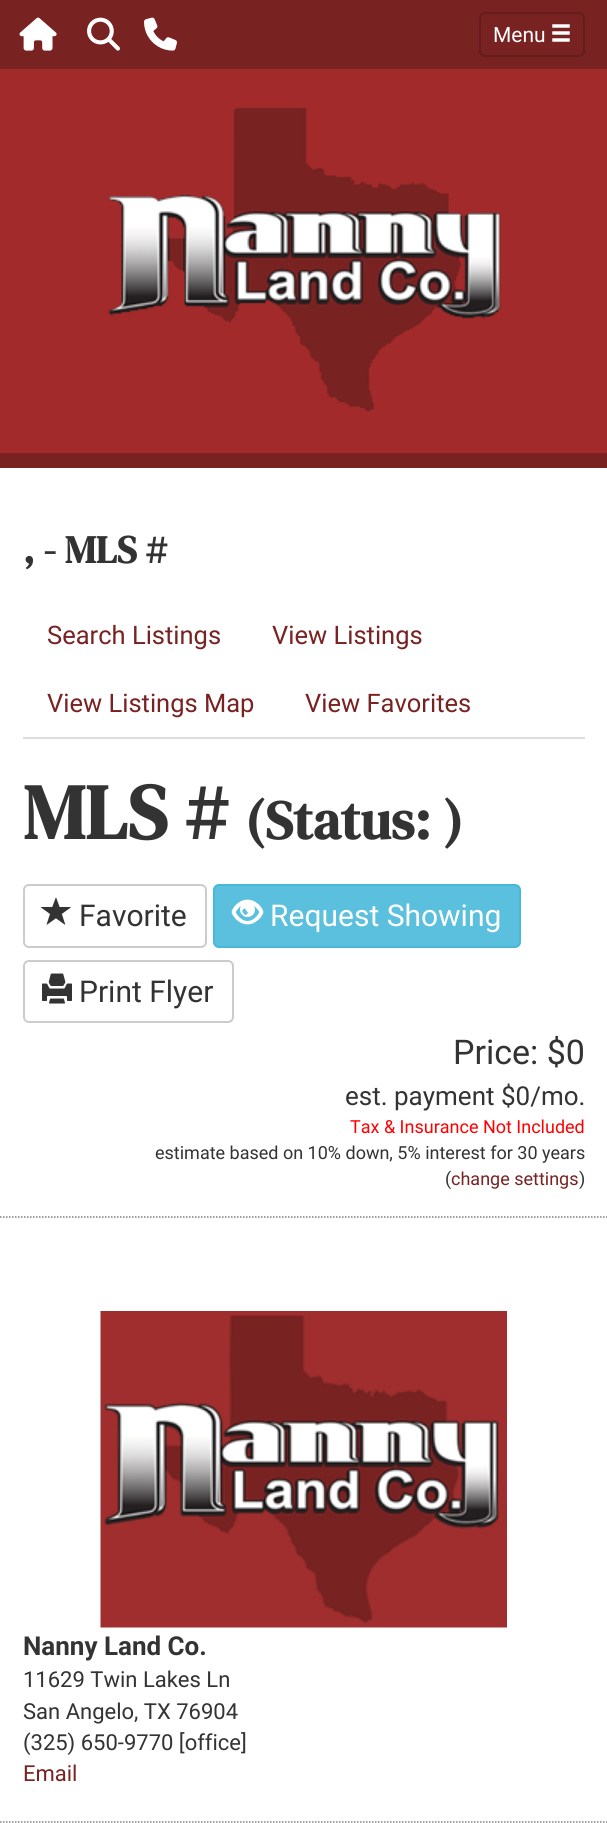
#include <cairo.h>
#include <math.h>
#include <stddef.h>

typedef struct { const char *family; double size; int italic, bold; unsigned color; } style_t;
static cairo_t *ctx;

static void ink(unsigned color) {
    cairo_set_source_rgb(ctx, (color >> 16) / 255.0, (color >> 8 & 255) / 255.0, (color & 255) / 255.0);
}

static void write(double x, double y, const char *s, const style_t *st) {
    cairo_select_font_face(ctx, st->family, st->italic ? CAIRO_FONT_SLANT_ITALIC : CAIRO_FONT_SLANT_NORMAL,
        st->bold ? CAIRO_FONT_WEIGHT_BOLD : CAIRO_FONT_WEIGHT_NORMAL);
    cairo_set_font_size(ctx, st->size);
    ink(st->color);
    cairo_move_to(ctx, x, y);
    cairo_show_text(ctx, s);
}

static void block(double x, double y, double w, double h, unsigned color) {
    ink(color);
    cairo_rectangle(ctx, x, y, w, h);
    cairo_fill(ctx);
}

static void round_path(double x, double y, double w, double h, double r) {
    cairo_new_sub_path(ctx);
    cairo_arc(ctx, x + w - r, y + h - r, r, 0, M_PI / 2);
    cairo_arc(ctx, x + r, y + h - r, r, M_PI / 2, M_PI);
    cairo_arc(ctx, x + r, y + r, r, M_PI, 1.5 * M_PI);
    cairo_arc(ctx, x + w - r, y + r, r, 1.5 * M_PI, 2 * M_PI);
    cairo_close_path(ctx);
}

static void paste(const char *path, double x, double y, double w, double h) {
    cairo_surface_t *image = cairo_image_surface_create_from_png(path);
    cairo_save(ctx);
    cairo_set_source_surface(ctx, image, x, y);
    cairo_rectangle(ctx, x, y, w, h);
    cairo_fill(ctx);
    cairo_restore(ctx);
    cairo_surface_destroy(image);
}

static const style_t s1 = {"Roboto", 21, 0, 0, 0xffffff};
static const style_t s2 = {"DM Serif Text", 39, 0, 1, 0x333333};
static const style_t s3 = {"Roboto", 25.5, 0, 0, 0x782222};
static const style_t s4 = {"DM Serif Text", 78, 0, 1, 0x333333};
static const style_t s5 = {"DM Serif Text", 54.5, 0, 1, 0x333333};
static const style_t s6 = {"Roboto", 30, 0, 0, 0x333333};
static const style_t s7 = {"Roboto", 30, 0, 0, 0xffffff};
static const style_t s8 = {"Roboto", 34, 0, 0, 0x333333};
static const style_t s9 = {"Roboto", 26, 0, 0, 0x333333};
static const style_t s10 = {"Roboto", 18, 0, 0, 0xff0000};
static const style_t s11 = {"Roboto", 18, 0, 0, 0x333333};
static const style_t s12 = {"Roboto", 18, 0, 0, 0x782222};
static const style_t s13 = {"Roboto", 26, 0, 1, 0x333333};
static const style_t s14 = {"Roboto", 22, 0, 0, 0x333333};
static const style_t s15 = {"Roboto", 22, 0, 0, 0x782222};

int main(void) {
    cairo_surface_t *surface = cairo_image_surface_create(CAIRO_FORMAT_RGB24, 607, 1823);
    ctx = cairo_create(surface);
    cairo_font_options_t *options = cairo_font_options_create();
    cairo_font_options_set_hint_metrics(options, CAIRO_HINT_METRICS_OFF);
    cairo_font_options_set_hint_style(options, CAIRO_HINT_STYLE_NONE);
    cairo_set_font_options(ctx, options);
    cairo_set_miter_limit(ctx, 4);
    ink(0xffffff);
    cairo_paint(ctx);
    block(0, 0, 607, 69, 0x782222);
    paste("pic1.png", 19, 17, 38, 34);
    paste("pic2.png", 87, 17, 33, 34);
    paste("pic3.png", 144, 17, 33, 34);
    round_path(480, 13, 104, 43, 5);
    ink(0x641c1c);
    cairo_stroke(ctx);
    write(493, 42, "Menu", &s1);
    paste("pic4.png", 552, 24, 18, 18);
    block(0, 69, 607, 384, 0xa32a2a);
    block(0, 453, 607, 15, 0x782222);
    paste("pic5.png", 108, 107, 393, 305);
    write(23, 563, ", - MLS #", &s2);
    block(23, 737, 562, 2, 0xdddddd);
    write(47, 644, "Search Listings", &s3);
    write(272, 644, "View Listings", &s3);
    write(47, 712, "View Listings Map", &s3);
    write(305, 712, "View Favorites", &s3);
    write(23, 839, "MLS #", &s4);
    write(245, 839, "(Status: )", &s5);
    round_path(24, 885, 182, 62, 5);
    ink(0xcccccc);
    cairo_stroke(ctx);
    paste("pic6.png", 41, 897, 30, 28);
    write(79, 926, "Favorite", &s6);
    ink(0x5bc0de);
    round_path(214, 885, 306, 62, 5);
    cairo_fill_preserve(ctx);
    ink(0x46b8da);
    cairo_stroke(ctx);
    paste("pic7.png", 231, 899, 33, 26);
    write(270, 926, "Request Showing", &s7);
    round_path(24, 961, 209, 61, 5);
    ink(0xcccccc);
    cairo_stroke(ctx);
    paste("pic8.png", 42, 973, 30, 31);
    write(79, 1002, "Print Flyer", &s6);
    write(453, 1064, "Price: $0", &s8);
    write(345, 1105, "est. payment $0/mo.", &s9);
    write(350, 1133, "Tax & Insurance Not Included", &s10);
    write(155, 1159, "estimate based on 10% down, 5% interest for 30 years", &s11);
    write(445, 1185, "(", &s11);
    write(451, 1185, "change settings", &s12);
    write(579, 1185, ")", &s11);
    cairo_new_path(ctx);
    cairo_move_to(ctx, 0, 1217);
    cairo_line_to(ctx, 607.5, 1217);
    ink(0x808080);
    cairo_set_line_width(ctx, 1.5);
    cairo_set_dash(ctx, (double[]){1.5, 1.5}, 2, 0);
    cairo_stroke(ctx);
    cairo_new_path(ctx);
    cairo_move_to(ctx, 0, 1822);
    cairo_line_to(ctx, 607.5, 1822);
    cairo_stroke(ctx);
    paste("pic9.png", 100, 1311, 407, 317);
    write(23, 1655, "Nanny Land Co.", &s13);
    write(23, 1687, "11629 Twin Lakes Ln", &s14);
    write(23, 1719, "San Angelo, TX 76904", &s14);
    write(23, 1750, "(325) 650-9770 [office]", &s14);
    write(23, 1781, "Email", &s15);
    cairo_surface_write_to_png(surface, "screenshot.png");
    cairo_font_options_destroy(options);
    cairo_destroy(ctx);
    cairo_surface_destroy(surface);
    return 0;
}
